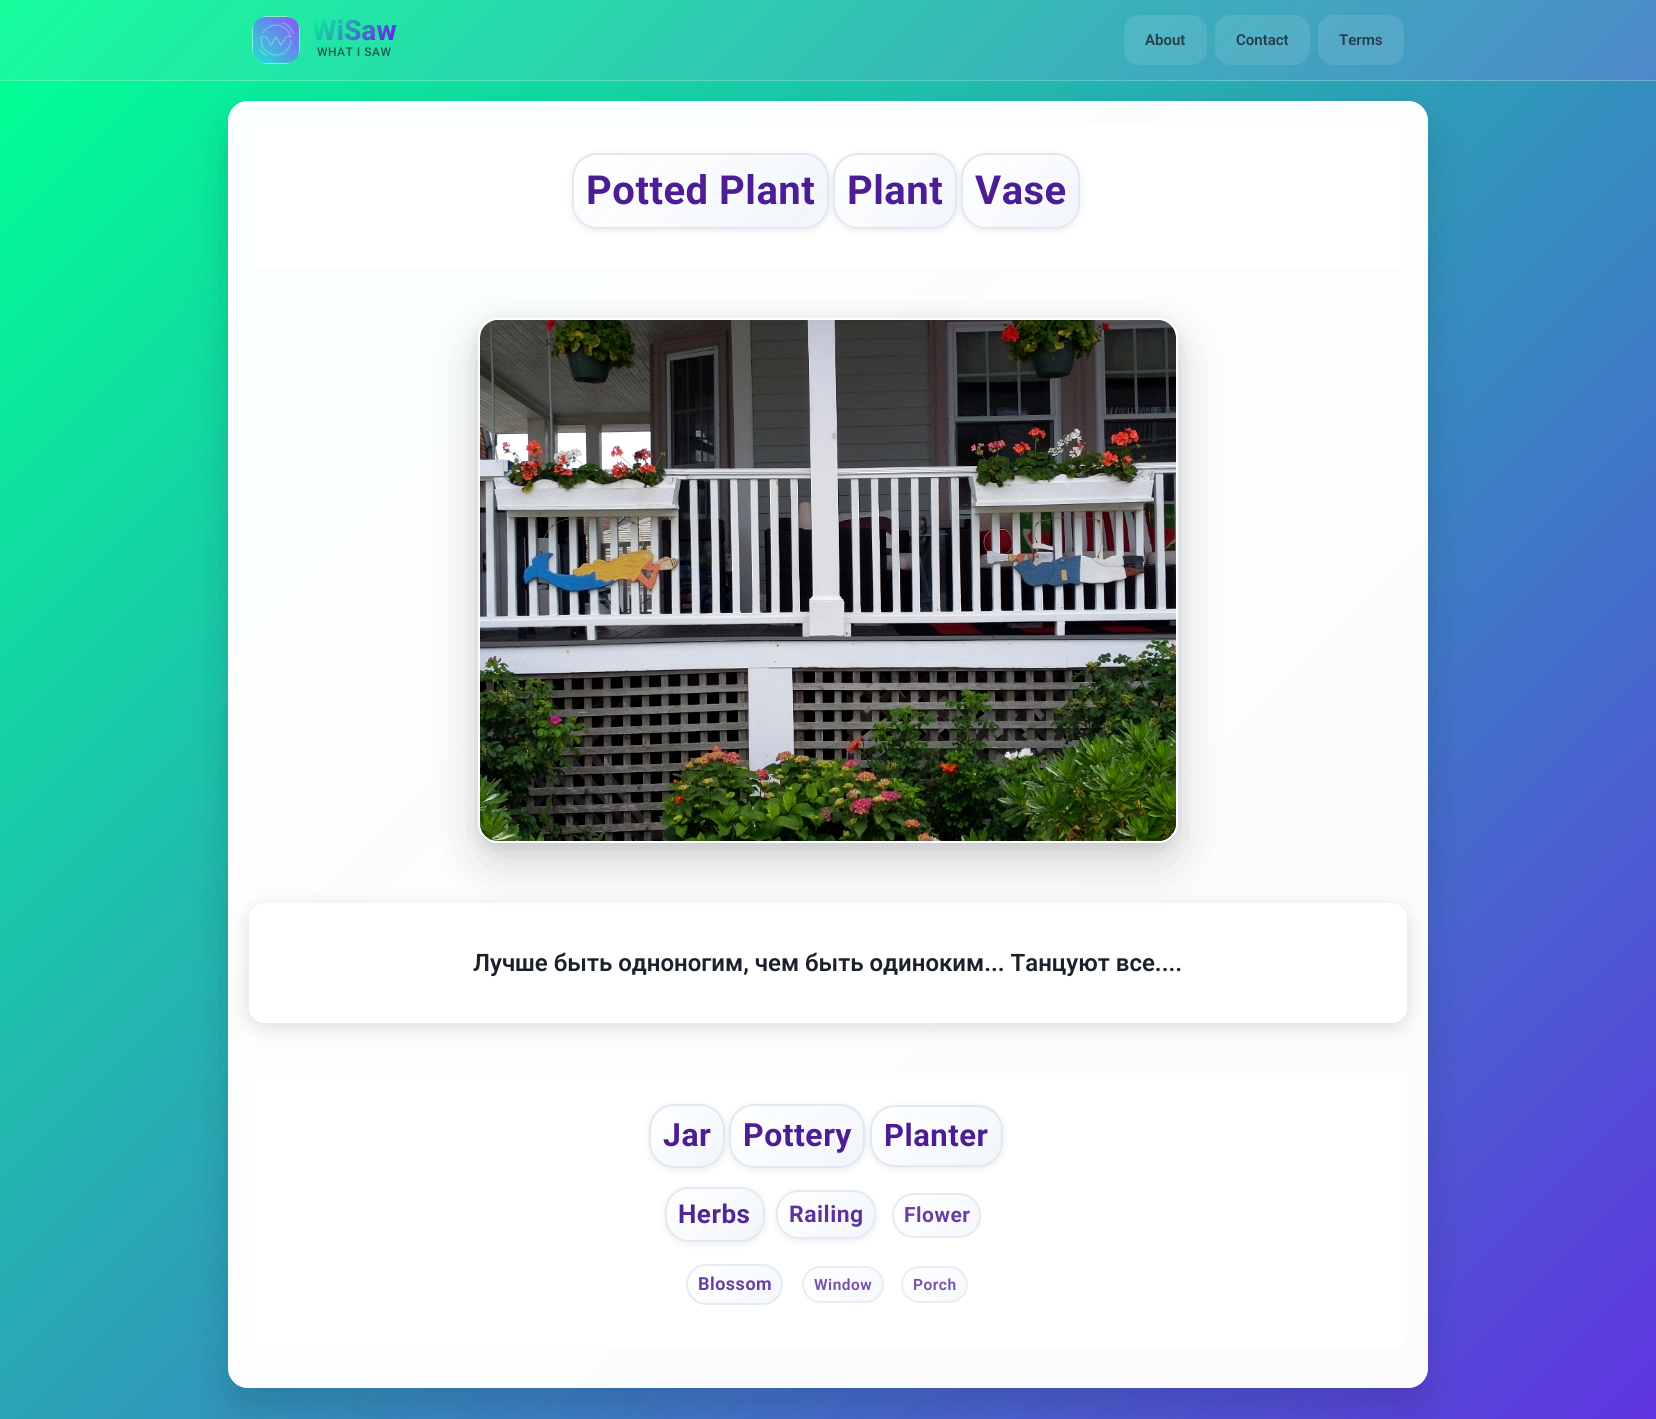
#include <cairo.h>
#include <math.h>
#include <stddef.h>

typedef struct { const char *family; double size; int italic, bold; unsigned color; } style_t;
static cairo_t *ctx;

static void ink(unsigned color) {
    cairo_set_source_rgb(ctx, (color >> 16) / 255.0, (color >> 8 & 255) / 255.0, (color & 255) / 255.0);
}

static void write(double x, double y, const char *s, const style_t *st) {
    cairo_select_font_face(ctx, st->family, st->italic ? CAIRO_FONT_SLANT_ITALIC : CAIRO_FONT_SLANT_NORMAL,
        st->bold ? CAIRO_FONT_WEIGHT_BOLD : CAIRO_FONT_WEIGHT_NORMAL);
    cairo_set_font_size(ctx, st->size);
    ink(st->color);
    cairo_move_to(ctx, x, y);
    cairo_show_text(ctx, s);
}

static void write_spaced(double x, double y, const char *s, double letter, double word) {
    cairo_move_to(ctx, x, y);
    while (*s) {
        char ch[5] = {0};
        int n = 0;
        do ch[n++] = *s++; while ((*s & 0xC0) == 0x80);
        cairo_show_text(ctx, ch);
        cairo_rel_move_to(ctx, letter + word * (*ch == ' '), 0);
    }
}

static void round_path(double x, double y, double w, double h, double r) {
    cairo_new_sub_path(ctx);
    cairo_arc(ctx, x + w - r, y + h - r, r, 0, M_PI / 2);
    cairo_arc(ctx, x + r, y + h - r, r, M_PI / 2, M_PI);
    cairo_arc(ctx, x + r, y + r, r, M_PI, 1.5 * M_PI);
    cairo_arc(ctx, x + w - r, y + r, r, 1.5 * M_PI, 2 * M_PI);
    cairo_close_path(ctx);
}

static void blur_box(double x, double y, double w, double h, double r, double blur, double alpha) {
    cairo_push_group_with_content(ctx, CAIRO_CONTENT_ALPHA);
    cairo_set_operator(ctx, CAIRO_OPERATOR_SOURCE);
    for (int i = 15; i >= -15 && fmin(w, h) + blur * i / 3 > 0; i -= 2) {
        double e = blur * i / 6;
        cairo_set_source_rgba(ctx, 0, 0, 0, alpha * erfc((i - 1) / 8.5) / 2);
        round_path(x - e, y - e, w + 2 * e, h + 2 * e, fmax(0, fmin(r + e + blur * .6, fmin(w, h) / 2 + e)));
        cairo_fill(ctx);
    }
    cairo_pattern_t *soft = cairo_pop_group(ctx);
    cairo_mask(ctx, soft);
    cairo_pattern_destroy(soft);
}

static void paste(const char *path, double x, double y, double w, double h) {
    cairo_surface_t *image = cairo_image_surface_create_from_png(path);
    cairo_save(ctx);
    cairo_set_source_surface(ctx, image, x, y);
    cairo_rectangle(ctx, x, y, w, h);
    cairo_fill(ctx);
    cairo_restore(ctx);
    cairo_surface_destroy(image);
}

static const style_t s1 = {"Roboto SemiBold", 15, 0, 0, 0x253e4a};
static const style_t s2 = {"Roboto SemiBold", 24, 0, 0, 0x1a202c};

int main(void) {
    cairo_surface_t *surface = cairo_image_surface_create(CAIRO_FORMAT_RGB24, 1656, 1419);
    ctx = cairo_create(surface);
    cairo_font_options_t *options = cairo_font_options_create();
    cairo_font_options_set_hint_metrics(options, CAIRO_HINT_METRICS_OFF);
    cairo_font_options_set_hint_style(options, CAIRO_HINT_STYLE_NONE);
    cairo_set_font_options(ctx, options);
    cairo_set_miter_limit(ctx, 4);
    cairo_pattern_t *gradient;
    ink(0xffffff);
    cairo_paint(ctx);
    gradient = cairo_pattern_create_linear(-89, 89, 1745, 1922);
    cairo_pattern_add_color_stop_rgba(gradient, 0, 0, 1, 0.58, 1);
    cairo_pattern_add_color_stop_rgba(gradient, 1, 0.447, 0.047, 0.941, 1);
    cairo_set_source(ctx, gradient);
    cairo_pattern_destroy(gradient);
    cairo_rectangle(ctx, 0, 0, 1656, 81);
    cairo_fill(ctx);
    gradient = cairo_pattern_create_linear(-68, 149, 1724, 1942);
    cairo_pattern_add_color_stop_rgba(gradient, 0, 0, 1, 0.58, 1);
    cairo_pattern_add_color_stop_rgba(gradient, 1, 0.447, 0.047, 0.941, 1);
    cairo_set_source(ctx, gradient);
    cairo_pattern_destroy(gradient);
    cairo_rectangle(ctx, 0, 81, 1656, 1338);
    cairo_fill(ctx);
    cairo_save(ctx);
    cairo_set_fill_rule(ctx, CAIRO_FILL_RULE_EVEN_ODD);
    cairo_new_path(ctx);
    cairo_move_to(ctx, 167, 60);
    cairo_line_to(ctx, 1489, 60);
    cairo_line_to(ctx, 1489, 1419);
    cairo_line_to(ctx, 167, 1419);
    cairo_close_path(ctx);
    cairo_move_to(ctx, 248, 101);
    cairo_line_to(ctx, 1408, 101);
    cairo_curve_to(ctx, 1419, 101, 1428, 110, 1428, 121);
    cairo_line_to(ctx, 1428, 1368);
    cairo_curve_to(ctx, 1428, 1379, 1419, 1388, 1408, 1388);
    cairo_line_to(ctx, 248, 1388);
    cairo_curve_to(ctx, 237, 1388, 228, 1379, 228, 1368);
    cairo_line_to(ctx, 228, 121);
    cairo_curve_to(ctx, 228, 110, 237, 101, 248, 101);
    cairo_close_path(ctx);
    cairo_clip(ctx);
    ink(0x000000);
    blur_box(228, 121, 1200, 1287, 20, 20, 0.15);
    cairo_restore(ctx);
    cairo_set_source_rgba(ctx, 1, 1, 1, 0.1);
    cairo_rectangle(ctx, 0, 0, 1656, 81);
    cairo_fill(ctx);
    cairo_set_source_rgba(ctx, 1, 1, 1, 0.2);
    cairo_rectangle(ctx, 0, 80, 1656, 1);
    cairo_fill(ctx);
    gradient = cairo_pattern_create_linear(394, -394, 1262, 474);
    cairo_pattern_add_color_stop_rgba(gradient, 0, 0, 1, 0.58, 0.1);
    cairo_pattern_add_color_stop_rgba(gradient, 1, 0.447, 0.047, 0.941, 0.1);
    cairo_set_source(ctx, gradient);
    cairo_pattern_destroy(gradient);
    cairo_rectangle(ctx, 0, 0, 1656, 80);
    cairo_fill(ctx);
    cairo_set_source_rgba(ctx, 1, 1, 1, 0.2);
    round_path(252, 16, 48, 48, 16);
    cairo_fill(ctx);
    round_path(252.5, 16.5, 47, 47, 15.5);
    cairo_set_source_rgba(ctx, 1, 1, 1, 0.3);
    cairo_set_line_width(ctx, 1);
    cairo_stroke(ctx);
    paste("pic1.png", 253, 17, 46, 46);
    cairo_select_font_face(ctx, "Roboto ExtraBold", CAIRO_FONT_SLANT_NORMAL, CAIRO_FONT_WEIGHT_NORMAL);
    cairo_set_font_size(ctx, 28);
    gradient = cairo_pattern_create_linear(326, 3.2, 383, 60);
    cairo_pattern_add_color_stop_rgba(gradient, 0, 0, 1, 0.58, 1);
    cairo_pattern_add_color_stop_rgba(gradient, 1, 0.447, 0.047, 0.941, 1);
    cairo_set_source(ctx, gradient);
    cairo_pattern_destroy(gradient);
    cairo_move_to(ctx, 312, 40);
    cairo_show_text(ctx, "WiSaw");
    cairo_select_font_face(ctx, "Roboto Medium", CAIRO_FONT_SLANT_NORMAL, CAIRO_FONT_WEIGHT_NORMAL);
    cairo_set_font_size(ctx, 12);
    ink(0x1d5b51);
    write_spaced(317, 56, "WHAT I SAW", 0.5, 0);
    cairo_set_source_rgba(ctx, 1, 1, 1, 0.1);
    round_path(1124, 15, 83, 50, 16);
    cairo_fill(ctx);
    write(1145, 45, "About", &s1);
    cairo_set_source_rgba(ctx, 1, 1, 1, 0.1);
    round_path(1215, 15, 95, 50, 16);
    cairo_fill(ctx);
    write(1236, 45, "Contact", &s1);
    cairo_set_source_rgba(ctx, 1, 1, 1, 0.1);
    round_path(1318, 15, 86, 50, 16);
    cairo_fill(ctx);
    write(1339, 45, "Terms", &s1);
    cairo_set_source_rgba(ctx, 1, 1, 1, 0.98);
    round_path(228, 101, 1200, 1287, 20);
    cairo_fill(ctx);
    round_path(228.5, 101.5, 1199, 1286, 19.5);
    cairo_set_source_rgba(ctx, 1, 1, 1, 0.4);
    cairo_stroke(ctx);
    ink(0xffffff);
    round_path(249, 122, 1158, 146, 12);
    cairo_fill(ctx);
    cairo_save(ctx);
    cairo_set_fill_rule(ctx, CAIRO_FILL_RULE_EVEN_ODD);
    cairo_new_path(ctx);
    cairo_move_to(ctx, 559, 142);
    cairo_line_to(ctx, 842, 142);
    cairo_line_to(ctx, 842, 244);
    cairo_line_to(ctx, 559, 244);
    cairo_close_path(ctx);
    cairo_move_to(ctx, 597, 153);
    cairo_line_to(ctx, 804, 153);
    cairo_curve_to(ctx, 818, 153, 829, 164, 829, 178);
    cairo_line_to(ctx, 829, 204);
    cairo_curve_to(ctx, 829, 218, 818, 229, 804, 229);
    cairo_line_to(ctx, 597, 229);
    cairo_curve_to(ctx, 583, 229, 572, 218, 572, 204);
    cairo_line_to(ctx, 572, 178);
    cairo_curve_to(ctx, 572, 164, 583, 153, 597, 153);
    cairo_close_path(ctx);
    cairo_clip(ctx);
    ink(0x000000);
    blur_box(572, 155, 257, 76, 25, 4, 0.08);
    cairo_restore(ctx);
    cairo_save(ctx);
    round_path(572, 153, 257, 76, 25);
    cairo_clip(ctx);
    gradient = cairo_pattern_create_linear(619, 110, 782, 272);
    cairo_pattern_add_color_stop_rgba(gradient, 0, 1, 1, 1, 0.9);
    cairo_pattern_add_color_stop_rgba(gradient, 1, 0.941, 0.961, 0.984, 0.95);
    cairo_set_source(ctx, gradient);
    cairo_pattern_destroy(gradient);
    cairo_rectangle(ctx, 574, 155, 253, 72);
    cairo_fill(ctx);
    cairo_restore(ctx);
    round_path(573, 154, 255, 74, 24);
    ink(0xe2e8f0);
    cairo_set_line_width(ctx, 2);
    cairo_stroke(ctx);
    cairo_select_font_face(ctx, "Roboto", CAIRO_FONT_SLANT_NORMAL, CAIRO_FONT_WEIGHT_BOLD);
    cairo_set_font_size(ctx, 40);
    ink(0x4c1d95);
    write_spaced(586, 204, "Potted Plant", 0.5, 0);
    cairo_save(ctx);
    cairo_set_fill_rule(ctx, CAIRO_FILL_RULE_EVEN_ODD);
    cairo_new_path(ctx);
    cairo_move_to(ctx, 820, 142);
    cairo_line_to(ctx, 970, 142);
    cairo_line_to(ctx, 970, 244);
    cairo_line_to(ctx, 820, 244);
    cairo_close_path(ctx);
    cairo_move_to(ctx, 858, 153);
    cairo_line_to(ctx, 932, 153);
    cairo_curve_to(ctx, 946, 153, 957, 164, 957, 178);
    cairo_line_to(ctx, 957, 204);
    cairo_curve_to(ctx, 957, 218, 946, 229, 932, 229);
    cairo_line_to(ctx, 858, 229);
    cairo_curve_to(ctx, 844, 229, 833, 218, 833, 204);
    cairo_line_to(ctx, 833, 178);
    cairo_curve_to(ctx, 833, 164, 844, 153, 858, 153);
    cairo_close_path(ctx);
    cairo_clip(ctx);
    ink(0x000000);
    blur_box(833, 155, 124, 76, 25, 4, 0.08);
    cairo_restore(ctx);
    cairo_save(ctx);
    round_path(833, 153, 124, 76, 25);
    cairo_clip(ctx);
    gradient = cairo_pattern_create_linear(847, 143, 943, 239);
    cairo_pattern_add_color_stop_rgba(gradient, 0, 1, 1, 1, 0.9);
    cairo_pattern_add_color_stop_rgba(gradient, 1, 0.941, 0.961, 0.984, 0.95);
    cairo_set_source(ctx, gradient);
    cairo_pattern_destroy(gradient);
    cairo_rectangle(ctx, 835, 155, 120, 72);
    cairo_fill(ctx);
    cairo_restore(ctx);
    round_path(834, 154, 122, 74, 24);
    ink(0xe2e8f0);
    cairo_stroke(ctx);
    ink(0x4c1d95);
    write_spaced(847, 204, "Plant", 0.5, 0);
    cairo_save(ctx);
    cairo_set_fill_rule(ctx, CAIRO_FILL_RULE_EVEN_ODD);
    cairo_new_path(ctx);
    cairo_move_to(ctx, 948, 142);
    cairo_line_to(ctx, 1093, 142);
    cairo_line_to(ctx, 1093, 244);
    cairo_line_to(ctx, 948, 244);
    cairo_close_path(ctx);
    cairo_move_to(ctx, 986, 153);
    cairo_line_to(ctx, 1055, 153);
    cairo_curve_to(ctx, 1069, 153, 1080, 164, 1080, 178);
    cairo_line_to(ctx, 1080, 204);
    cairo_curve_to(ctx, 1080, 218, 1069, 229, 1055, 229);
    cairo_line_to(ctx, 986, 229);
    cairo_curve_to(ctx, 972, 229, 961, 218, 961, 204);
    cairo_line_to(ctx, 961, 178);
    cairo_curve_to(ctx, 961, 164, 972, 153, 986, 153);
    cairo_close_path(ctx);
    cairo_clip(ctx);
    ink(0x000000);
    blur_box(961, 155, 119, 76, 25, 4, 0.08);
    cairo_restore(ctx);
    cairo_save(ctx);
    round_path(961, 153, 119, 76, 25);
    cairo_clip(ctx);
    gradient = cairo_pattern_create_linear(974, 144, 1067, 238);
    cairo_pattern_add_color_stop_rgba(gradient, 0, 1, 1, 1, 0.9);
    cairo_pattern_add_color_stop_rgba(gradient, 1, 0.941, 0.961, 0.984, 0.95);
    cairo_set_source(ctx, gradient);
    cairo_pattern_destroy(gradient);
    cairo_rectangle(ctx, 963, 155, 115, 72);
    cairo_fill(ctx);
    cairo_restore(ctx);
    round_path(962, 154, 117, 74, 24);
    ink(0xe2e8f0);
    cairo_stroke(ctx);
    ink(0x4c1d95);
    write_spaced(975, 204, "Vase", 0.5, 0);
    cairo_save(ctx);
    cairo_set_fill_rule(ctx, CAIRO_FILL_RULE_EVEN_ODD);
    cairo_new_path(ctx);
    cairo_move_to(ctx, 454, 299);
    cairo_line_to(ctx, 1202, 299);
    cairo_line_to(ctx, 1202, 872);
    cairo_line_to(ctx, 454, 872);
    cairo_close_path(ctx);
    cairo_move_to(ctx, 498, 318);
    cairo_line_to(ctx, 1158, 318);
    cairo_curve_to(ctx, 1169, 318, 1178, 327, 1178, 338);
    cairo_line_to(ctx, 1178, 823);
    cairo_curve_to(ctx, 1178, 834, 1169, 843, 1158, 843);
    cairo_line_to(ctx, 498, 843);
    cairo_curve_to(ctx, 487, 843, 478, 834, 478, 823);
    cairo_line_to(ctx, 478, 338);
    cairo_curve_to(ctx, 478, 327, 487, 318, 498, 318);
    cairo_close_path(ctx);
    cairo_clip(ctx);
    ink(0x000000);
    blur_box(478, 323, 700, 525, 20, 7.5, 0.1);
    cairo_restore(ctx);
    cairo_save(ctx);
    cairo_set_fill_rule(ctx, CAIRO_FILL_RULE_EVEN_ODD);
    cairo_new_path(ctx);
    cairo_move_to(ctx, 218, 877);
    cairo_line_to(ctx, 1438, 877);
    cairo_line_to(ctx, 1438, 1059);
    cairo_line_to(ctx, 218, 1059);
    cairo_close_path(ctx);
    cairo_move_to(ctx, 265, 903);
    cairo_line_to(ctx, 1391, 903);
    cairo_curve_to(ctx, 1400, 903, 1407, 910, 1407, 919);
    cairo_line_to(ctx, 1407, 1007);
    cairo_curve_to(ctx, 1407, 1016, 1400, 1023, 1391, 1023);
    cairo_line_to(ctx, 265, 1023);
    cairo_curve_to(ctx, 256, 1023, 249, 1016, 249, 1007);
    cairo_line_to(ctx, 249, 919);
    cairo_curve_to(ctx, 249, 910, 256, 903, 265, 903);
    cairo_close_path(ctx);
    cairo_clip(ctx);
    ink(0x000000);
    blur_box(249, 908, 1158, 120, 16, 10, 0.12);
    cairo_restore(ctx);
    cairo_set_source_rgba(ctx, 1, 1, 1, 0.98);
    round_path(249, 903, 1158, 120, 16);
    cairo_fill(ctx);
    cairo_save(ctx);
    cairo_set_fill_rule(ctx, CAIRO_FILL_RULE_EVEN_ODD);
    cairo_new_path(ctx);
    cairo_move_to(ctx, 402, 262);
    cairo_line_to(ctx, 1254, 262);
    cairo_line_to(ctx, 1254, 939);
    cairo_line_to(ctx, 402, 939);
    cairo_close_path(ctx);
    cairo_move_to(ctx, 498, 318);
    cairo_line_to(ctx, 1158, 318);
    cairo_curve_to(ctx, 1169, 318, 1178, 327, 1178, 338);
    cairo_line_to(ctx, 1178, 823);
    cairo_curve_to(ctx, 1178, 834, 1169, 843, 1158, 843);
    cairo_line_to(ctx, 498, 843);
    cairo_curve_to(ctx, 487, 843, 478, 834, 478, 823);
    cairo_line_to(ctx, 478, 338);
    cairo_curve_to(ctx, 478, 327, 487, 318, 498, 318);
    cairo_close_path(ctx);
    cairo_clip(ctx);
    ink(0x000000);
    blur_box(478, 338, 700, 525, 20, 25, 0.15);
    cairo_restore(ctx);
    cairo_save(ctx);
    round_path(478, 318, 700, 525, 20);
    cairo_clip(ctx);
    gradient = cairo_pattern_create_linear(591, -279, 1065, 398);
    cairo_pattern_add_color_stop_rgba(gradient, 0, 1, 1, 1, 0.95);
    cairo_pattern_add_color_stop_rgba(gradient, 1, 1, 1, 1, 0.85);
    cairo_set_source(ctx, gradient);
    cairo_pattern_destroy(gradient);
    cairo_rectangle(ctx, 489, 318, 678, 2);
    cairo_fill(ctx);
    gradient = cairo_pattern_create_linear(-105, 242, 369, 919);
    cairo_pattern_add_color_stop_rgba(gradient, 0, 1, 1, 1, 0.95);
    cairo_pattern_add_color_stop_rgba(gradient, 1, 1, 1, 1, 0.85);
    cairo_set_source(ctx, gradient);
    cairo_pattern_destroy(gradient);
    cairo_rectangle(ctx, 478, 329, 2, 503);
    cairo_fill(ctx);
    gradient = cairo_pattern_create_linear(591, 242, 1065, 919);
    cairo_pattern_add_color_stop_rgba(gradient, 0, 1, 1, 1, 0.95);
    cairo_pattern_add_color_stop_rgba(gradient, 1, 1, 1, 1, 0.85);
    cairo_set_source(ctx, gradient);
    cairo_pattern_destroy(gradient);
    cairo_rectangle(ctx, 480, 320, 696, 521);
    cairo_fill(ctx);
    gradient = cairo_pattern_create_linear(1287, 242, 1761, 919);
    cairo_pattern_add_color_stop_rgba(gradient, 0, 1, 1, 1, 0.95);
    cairo_pattern_add_color_stop_rgba(gradient, 1, 1, 1, 1, 0.85);
    cairo_set_source(ctx, gradient);
    cairo_pattern_destroy(gradient);
    cairo_rectangle(ctx, 1176, 329, 2, 503);
    cairo_fill(ctx);
    gradient = cairo_pattern_create_linear(591, 763, 1065, 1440);
    cairo_pattern_add_color_stop_rgba(gradient, 0, 1, 1, 1, 0.95);
    cairo_pattern_add_color_stop_rgba(gradient, 1, 1, 1, 1, 0.85);
    cairo_set_source(ctx, gradient);
    cairo_pattern_destroy(gradient);
    cairo_rectangle(ctx, 489, 841, 678, 2);
    cairo_fill(ctx);
    cairo_restore(ctx);
    paste("pic2.png", 480, 320, 696, 521);
    paste("pic3.png", 480, 320, 696, 521);
    write(473, 971, "Лучше быть одноногим, чем быть одиноким... Танцуют все....", &s2);
    ink(0xffffff);
    round_path(249, 1073, 1158, 274, 12);
    cairo_fill(ctx);
    cairo_save(ctx);
    cairo_set_fill_rule(ctx, CAIRO_FILL_RULE_EVEN_ODD);
    cairo_new_path(ctx);
    cairo_move_to(ctx, 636, 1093);
    cairo_line_to(ctx, 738, 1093);
    cairo_line_to(ctx, 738, 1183);
    cairo_line_to(ctx, 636, 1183);
    cairo_close_path(ctx);
    cairo_move_to(ctx, 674, 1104);
    cairo_line_to(ctx, 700, 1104);
    cairo_curve_to(ctx, 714, 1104, 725, 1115, 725, 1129);
    cairo_line_to(ctx, 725, 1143);
    cairo_curve_to(ctx, 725, 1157, 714, 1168, 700, 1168);
    cairo_line_to(ctx, 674, 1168);
    cairo_curve_to(ctx, 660, 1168, 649, 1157, 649, 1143);
    cairo_line_to(ctx, 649, 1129);
    cairo_curve_to(ctx, 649, 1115, 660, 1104, 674, 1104);
    cairo_close_path(ctx);
    cairo_clip(ctx);
    ink(0x000000);
    blur_box(649, 1106, 76, 64, 25, 4, 0.08);
    cairo_restore(ctx);
    cairo_save(ctx);
    round_path(649, 1104, 76, 64, 25);
    cairo_clip(ctx);
    gradient = cairo_pattern_create_linear(654, 1103, 720, 1169);
    cairo_pattern_add_color_stop_rgba(gradient, 0, 1, 1, 1, 0.9);
    cairo_pattern_add_color_stop_rgba(gradient, 1, 0.941, 0.961, 0.984, 0.95);
    cairo_set_source(ctx, gradient);
    cairo_pattern_destroy(gradient);
    cairo_rectangle(ctx, 651, 1106, 72, 60);
    cairo_fill(ctx);
    cairo_restore(ctx);
    round_path(650, 1105, 74, 62, 24);
    ink(0xe2e8f0);
    cairo_stroke(ctx);
    cairo_select_font_face(ctx, "Roboto", CAIRO_FONT_SLANT_NORMAL, CAIRO_FONT_WEIGHT_BOLD);
    cairo_set_font_size(ctx, 32);
    ink(0x4c1d95);
    write_spaced(663, 1146, "Jar", 0.5, 0);
    cairo_save(ctx);
    cairo_set_fill_rule(ctx, CAIRO_FILL_RULE_EVEN_ODD);
    cairo_new_path(ctx);
    cairo_move_to(ctx, 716, 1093);
    cairo_line_to(ctx, 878, 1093);
    cairo_line_to(ctx, 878, 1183);
    cairo_line_to(ctx, 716, 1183);
    cairo_close_path(ctx);
    cairo_move_to(ctx, 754, 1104);
    cairo_line_to(ctx, 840, 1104);
    cairo_curve_to(ctx, 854, 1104, 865, 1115, 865, 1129);
    cairo_line_to(ctx, 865, 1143);
    cairo_curve_to(ctx, 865, 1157, 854, 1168, 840, 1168);
    cairo_line_to(ctx, 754, 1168);
    cairo_curve_to(ctx, 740, 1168, 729, 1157, 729, 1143);
    cairo_line_to(ctx, 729, 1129);
    cairo_curve_to(ctx, 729, 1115, 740, 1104, 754, 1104);
    cairo_close_path(ctx);
    cairo_clip(ctx);
    ink(0x000000);
    blur_box(729, 1106, 136, 64, 25, 4, 0.08);
    cairo_restore(ctx);
    cairo_save(ctx);
    round_path(729, 1104, 136, 64, 25);
    cairo_clip(ctx);
    gradient = cairo_pattern_create_linear(749, 1088, 845, 1184);
    cairo_pattern_add_color_stop_rgba(gradient, 0, 1, 1, 1, 0.9);
    cairo_pattern_add_color_stop_rgba(gradient, 1, 0.941, 0.961, 0.984, 0.95);
    cairo_set_source(ctx, gradient);
    cairo_pattern_destroy(gradient);
    cairo_rectangle(ctx, 731, 1106, 132, 60);
    cairo_fill(ctx);
    cairo_restore(ctx);
    round_path(730, 1105, 134, 62, 24);
    ink(0xe2e8f0);
    cairo_stroke(ctx);
    ink(0x4c1d95);
    write_spaced(743, 1146, "Pottery", 0.5, 0);
    cairo_save(ctx);
    cairo_set_fill_rule(ctx, CAIRO_FILL_RULE_EVEN_ODD);
    cairo_new_path(ctx);
    cairo_move_to(ctx, 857, 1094);
    cairo_line_to(ctx, 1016, 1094);
    cairo_line_to(ctx, 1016, 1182);
    cairo_line_to(ctx, 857, 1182);
    cairo_close_path(ctx);
    cairo_move_to(ctx, 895, 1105);
    cairo_line_to(ctx, 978, 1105);
    cairo_curve_to(ctx, 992, 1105, 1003, 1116, 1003, 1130);
    cairo_line_to(ctx, 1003, 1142);
    cairo_curve_to(ctx, 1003, 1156, 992, 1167, 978, 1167);
    cairo_line_to(ctx, 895, 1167);
    cairo_curve_to(ctx, 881, 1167, 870, 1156, 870, 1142);
    cairo_line_to(ctx, 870, 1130);
    cairo_curve_to(ctx, 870, 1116, 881, 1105, 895, 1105);
    cairo_close_path(ctx);
    cairo_clip(ctx);
    ink(0x000000);
    blur_box(870, 1107, 133, 62, 25, 4, 0.08);
    cairo_restore(ctx);
    cairo_save(ctx);
    round_path(870, 1105, 133, 62, 25);
    cairo_clip(ctx);
    gradient = cairo_pattern_create_linear(890, 1089, 983, 1183);
    cairo_pattern_add_color_stop_rgba(gradient, 0, 1, 1, 1, 0.9);
    cairo_pattern_add_color_stop_rgba(gradient, 1, 0.941, 0.961, 0.984, 0.95);
    cairo_set_source(ctx, gradient);
    cairo_pattern_destroy(gradient);
    cairo_rectangle(ctx, 872, 1107, 129, 58);
    cairo_fill(ctx);
    cairo_restore(ctx);
    round_path(871, 1106, 131, 60, 24);
    ink(0xe2e8f0);
    cairo_stroke(ctx);
    cairo_select_font_face(ctx, "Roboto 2", CAIRO_FONT_SLANT_NORMAL, CAIRO_FONT_WEIGHT_BOLD);
    cairo_set_font_size(ctx, 31);
    ink(0x4c1d95);
    write_spaced(884, 1146, "Planter", 0.5, 0);
    cairo_save(ctx);
    cairo_set_fill_rule(ctx, CAIRO_FILL_RULE_EVEN_ODD);
    cairo_new_path(ctx);
    cairo_move_to(ctx, 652, 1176);
    cairo_line_to(ctx, 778, 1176);
    cairo_line_to(ctx, 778, 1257);
    cairo_line_to(ctx, 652, 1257);
    cairo_close_path(ctx);
    cairo_move_to(ctx, 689, 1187);
    cairo_line_to(ctx, 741, 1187);
    cairo_curve_to(ctx, 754.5, 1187, 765, 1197.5, 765, 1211);
    cairo_line_to(ctx, 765, 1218);
    cairo_curve_to(ctx, 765, 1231.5, 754.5, 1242, 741, 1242);
    cairo_line_to(ctx, 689, 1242);
    cairo_curve_to(ctx, 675.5, 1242, 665, 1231.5, 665, 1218);
    cairo_line_to(ctx, 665, 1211);
    cairo_curve_to(ctx, 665, 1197.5, 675.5, 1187, 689, 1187);
    cairo_close_path(ctx);
    cairo_clip(ctx);
    ink(0x080808);
    blur_box(665, 1189, 100, 55, 24, 4, 0.08);
    cairo_restore(ctx);
    cairo_save(ctx);
    round_path(665, 1187, 100, 55, 24);
    cairo_clip(ctx);
    gradient = cairo_pattern_create_linear(678, 1178, 752, 1251);
    cairo_pattern_add_color_stop_rgba(gradient, 0, 1, 1, 1, 0.9);
    cairo_pattern_add_color_stop_rgba(gradient, 1, 0.941, 0.961, 0.984, 0.95);
    cairo_set_source(ctx, gradient);
    cairo_pattern_destroy(gradient);
    cairo_rectangle(ctx, 667, 1189, 96, 51);
    cairo_fill(ctx);
    cairo_restore(ctx);
    round_path(666, 1188, 98, 53, 23);
    ink(0xe3e9f0);
    cairo_stroke(ctx);
    cairo_select_font_face(ctx, "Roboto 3", CAIRO_FONT_SLANT_NORMAL, CAIRO_FONT_WEIGHT_BOLD);
    cairo_set_font_size(ctx, 26);
    ink(0x512498);
    write_spaced(678, 1223, "Herbs", 0.5, 0);
    cairo_save(ctx);
    cairo_set_fill_rule(ctx, CAIRO_FILL_RULE_EVEN_ODD);
    cairo_new_path(ctx);
    cairo_move_to(ctx, 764, 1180);
    cairo_line_to(ctx, 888, 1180);
    cairo_line_to(ctx, 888, 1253);
    cairo_line_to(ctx, 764, 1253);
    cairo_close_path(ctx);
    cairo_move_to(ctx, 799, 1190);
    cairo_line_to(ctx, 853, 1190);
    cairo_curve_to(ctx, 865.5, 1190, 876, 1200.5, 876, 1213);
    cairo_line_to(ctx, 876, 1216);
    cairo_curve_to(ctx, 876, 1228.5, 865.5, 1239, 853, 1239);
    cairo_line_to(ctx, 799, 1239);
    cairo_curve_to(ctx, 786.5, 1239, 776, 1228.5, 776, 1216);
    cairo_line_to(ctx, 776, 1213);
    cairo_curve_to(ctx, 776, 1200.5, 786.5, 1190, 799, 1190);
    cairo_close_path(ctx);
    cairo_clip(ctx);
    ink(0x181818);
    blur_box(776, 1192, 100, 49, 23, 3.5, 0.08);
    cairo_restore(ctx);
    cairo_save(ctx);
    round_path(776, 1190, 100, 49, 23);
    cairo_clip(ctx);
    gradient = cairo_pattern_create_linear(790, 1179, 861, 1250);
    cairo_pattern_add_color_stop_rgba(gradient, 0, 1, 1, 1, 0.9);
    cairo_pattern_add_color_stop_rgba(gradient, 1, 0.945, 0.965, 0.984, 0.95);
    cairo_set_source(ctx, gradient);
    cairo_pattern_destroy(gradient);
    cairo_rectangle(ctx, 778, 1192, 96, 45);
    cairo_fill(ctx);
    cairo_restore(ctx);
    round_path(777, 1191, 98, 47, 22);
    ink(0xe5eaf1);
    cairo_stroke(ctx);
    cairo_select_font_face(ctx, "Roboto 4", CAIRO_FONT_SLANT_NORMAL, CAIRO_FONT_WEIGHT_BOLD);
    cairo_set_font_size(ctx, 23);
    ink(0x5d329f);
    write_spaced(789, 1222, "Railing", 0.5, 0);
    cairo_save(ctx);
    round_path(892, 1193, 89, 45, 22);
    cairo_clip(ctx);
    gradient = cairo_pattern_create_linear(905, 1184, 969, 1247);
    cairo_pattern_add_color_stop_rgba(gradient, 0, 1, 1, 1, 0.9);
    cairo_pattern_add_color_stop_rgba(gradient, 1, 0.949, 0.965, 0.988, 0.95);
    cairo_set_source(ctx, gradient);
    cairo_pattern_destroy(gradient);
    cairo_rectangle(ctx, 894, 1195, 86, 41);
    cairo_fill(ctx);
    cairo_restore(ctx);
    round_path(893, 1194, 87, 43, 21);
    ink(0xe6ebf2);
    cairo_stroke(ctx);
    cairo_select_font_face(ctx, "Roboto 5", CAIRO_FONT_SLANT_NORMAL, CAIRO_FONT_WEIGHT_BOLD);
    cairo_set_font_size(ctx, 21);
    ink(0x653da4);
    write_spaced(904, 1222, "Flower", 0.5, 0);
    cairo_save(ctx);
    round_path(686, 1264, 97, 41, 20.5);
    cairo_clip(ctx);
    gradient = cairo_pattern_create_linear(702, 1252, 767, 1317);
    cairo_pattern_add_color_stop_rgba(gradient, 0, 1, 1, 1, 0.9);
    cairo_pattern_add_color_stop_rgba(gradient, 1, 0.949, 0.965, 0.988, 0.95);
    cairo_set_source(ctx, gradient);
    cairo_pattern_destroy(gradient);
    cairo_rectangle(ctx, 688, 1266, 93, 37);
    cairo_fill(ctx);
    cairo_restore(ctx);
    round_path(687, 1265, 95, 39, 19.5);
    ink(0xe6ebf2);
    cairo_stroke(ctx);
    cairo_set_font_size(ctx, 18);
    ink(0x653da4);
    write_spaced(698, 1290, "Blossom", 0.5, 0);
    cairo_save(ctx);
    round_path(802, 1266, 82, 37, 18.5);
    cairo_clip(ctx);
    gradient = cairo_pattern_create_linear(815, 1257, 871, 1313);
    cairo_pattern_add_color_stop_rgba(gradient, 0, 1, 1, 1, 0.9);
    cairo_pattern_add_color_stop_rgba(gradient, 1, 0.957, 0.969, 0.988, 0.95);
    cairo_set_source(ctx, gradient);
    cairo_pattern_destroy(gradient);
    cairo_rectangle(ctx, 804, 1268, 78, 34);
    cairo_fill(ctx);
    cairo_restore(ctx);
    round_path(803, 1267, 80, 35, 17.5);
    ink(0xe9edf4);
    cairo_stroke(ctx);
    cairo_select_font_face(ctx, "Roboto 2 SemiBold", CAIRO_FONT_SLANT_NORMAL, CAIRO_FONT_WEIGHT_NORMAL);
    cairo_set_font_size(ctx, 15.5);
    ink(0x7652ae);
    write_spaced(814, 1290, "Window", 0.5, 0);
    cairo_save(ctx);
    round_path(901, 1266, 67, 37, 18.5);
    cairo_clip(ctx);
    gradient = cairo_pattern_create_linear(910, 1260, 959, 1309);
    cairo_pattern_add_color_stop_rgba(gradient, 0, 1, 1, 1, 0.9);
    cairo_pattern_add_color_stop_rgba(gradient, 1, 0.957, 0.969, 0.988, 0.95);
    cairo_set_source(ctx, gradient);
    cairo_pattern_destroy(gradient);
    cairo_rectangle(ctx, 903, 1268, 63, 33);
    cairo_fill(ctx);
    cairo_restore(ctx);
    round_path(902, 1267, 65, 35, 17.5);
    ink(0xe9eef4);
    cairo_stroke(ctx);
    cairo_select_font_face(ctx, "Roboto 3 SemiBold", CAIRO_FONT_SLANT_NORMAL, CAIRO_FONT_WEIGHT_NORMAL);
    ink(0x7652ae);
    write_spaced(913, 1290, "Porch", 0.5, 0);
    cairo_surface_write_to_png(surface, "screenshot.png");
    cairo_font_options_destroy(options);
    cairo_destroy(ctx);
    cairo_surface_destroy(surface);
    return 0;
}
